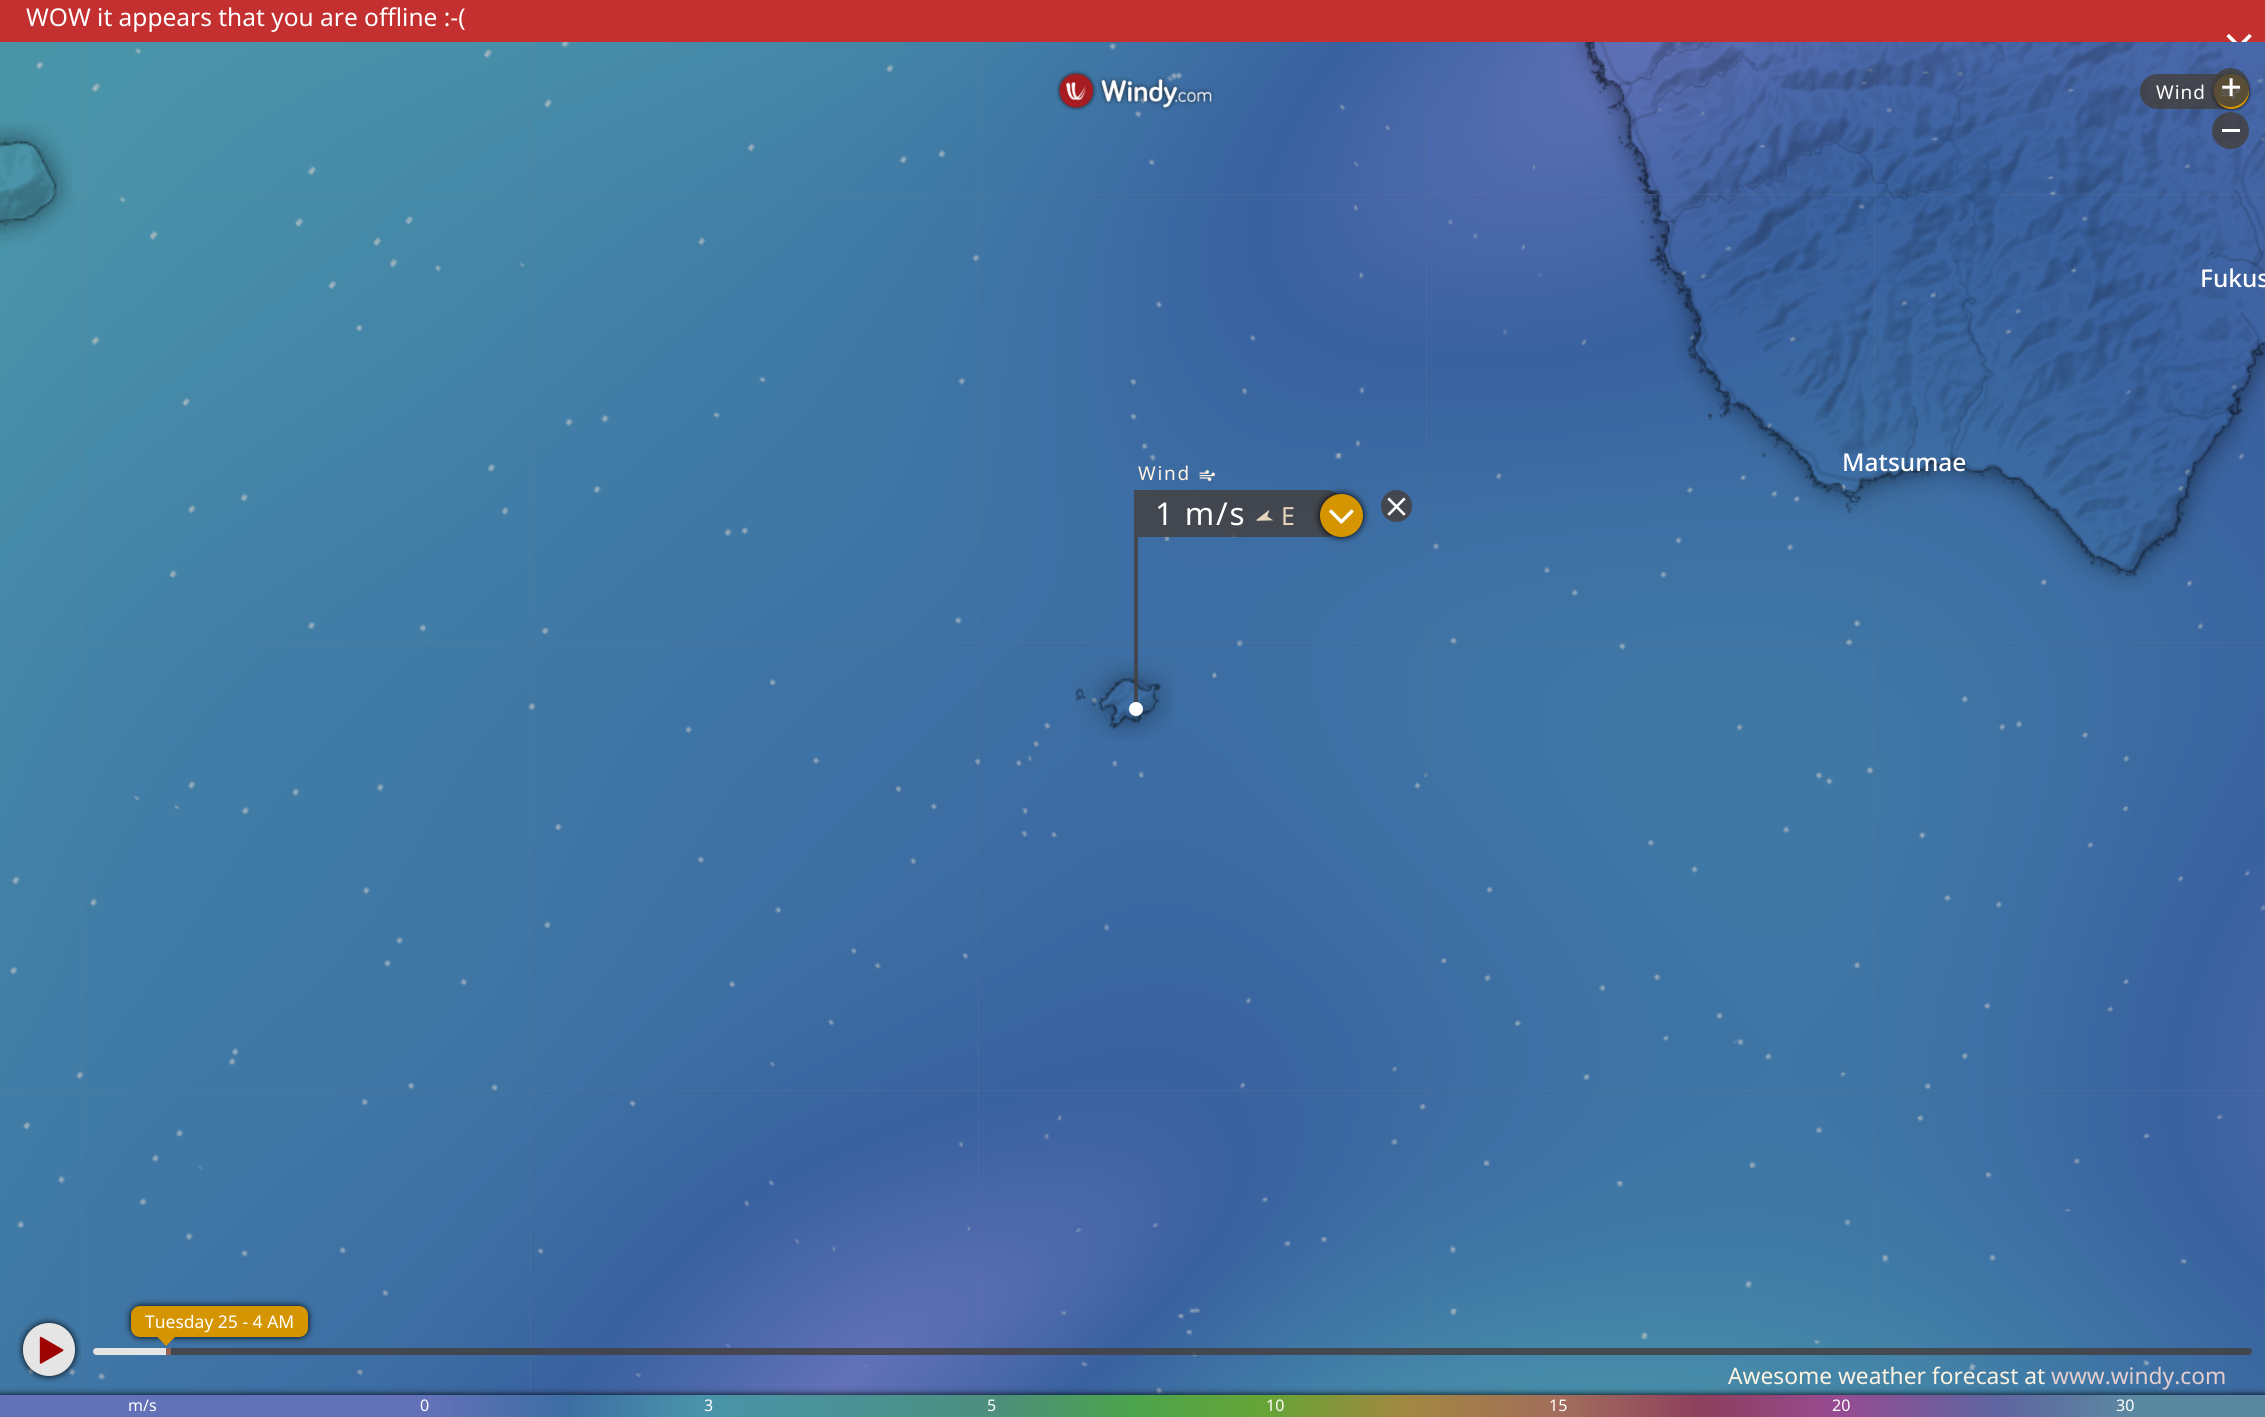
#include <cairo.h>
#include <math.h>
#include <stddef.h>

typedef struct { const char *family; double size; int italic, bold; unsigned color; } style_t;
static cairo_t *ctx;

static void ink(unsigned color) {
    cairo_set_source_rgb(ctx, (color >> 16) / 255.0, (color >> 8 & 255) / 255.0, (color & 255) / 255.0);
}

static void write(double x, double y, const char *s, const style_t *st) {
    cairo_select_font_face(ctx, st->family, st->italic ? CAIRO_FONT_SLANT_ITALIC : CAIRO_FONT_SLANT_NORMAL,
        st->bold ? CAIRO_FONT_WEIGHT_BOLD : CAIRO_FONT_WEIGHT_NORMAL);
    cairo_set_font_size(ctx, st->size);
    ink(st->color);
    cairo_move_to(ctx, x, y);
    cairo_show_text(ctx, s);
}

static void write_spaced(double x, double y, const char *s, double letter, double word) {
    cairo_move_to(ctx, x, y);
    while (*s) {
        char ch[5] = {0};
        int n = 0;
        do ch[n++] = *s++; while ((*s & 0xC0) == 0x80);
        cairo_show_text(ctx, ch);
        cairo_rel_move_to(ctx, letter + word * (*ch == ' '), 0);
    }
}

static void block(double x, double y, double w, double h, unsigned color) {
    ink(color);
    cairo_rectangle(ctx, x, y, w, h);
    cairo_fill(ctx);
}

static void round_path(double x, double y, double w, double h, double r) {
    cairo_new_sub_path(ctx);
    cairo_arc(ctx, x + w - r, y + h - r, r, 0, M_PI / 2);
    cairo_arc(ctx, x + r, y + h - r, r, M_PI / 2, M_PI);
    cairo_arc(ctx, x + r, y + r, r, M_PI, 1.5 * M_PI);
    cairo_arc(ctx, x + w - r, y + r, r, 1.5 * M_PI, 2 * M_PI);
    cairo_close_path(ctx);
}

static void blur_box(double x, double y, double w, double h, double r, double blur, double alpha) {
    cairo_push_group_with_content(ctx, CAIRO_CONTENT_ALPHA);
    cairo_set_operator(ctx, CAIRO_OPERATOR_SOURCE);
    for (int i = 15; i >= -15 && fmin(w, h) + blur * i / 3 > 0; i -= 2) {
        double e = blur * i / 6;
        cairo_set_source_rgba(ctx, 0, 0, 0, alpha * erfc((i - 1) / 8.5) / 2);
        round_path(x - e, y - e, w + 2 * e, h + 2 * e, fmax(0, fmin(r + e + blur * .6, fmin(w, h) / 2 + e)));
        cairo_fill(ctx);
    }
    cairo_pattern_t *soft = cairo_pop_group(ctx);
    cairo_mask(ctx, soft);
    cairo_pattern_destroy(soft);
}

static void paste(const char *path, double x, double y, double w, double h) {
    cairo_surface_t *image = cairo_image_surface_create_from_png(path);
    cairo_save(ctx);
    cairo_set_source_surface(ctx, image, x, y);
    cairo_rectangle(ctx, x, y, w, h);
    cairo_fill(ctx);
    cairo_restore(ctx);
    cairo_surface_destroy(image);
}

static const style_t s1 = {"Noto Sans", 24.5, 0, 0, 0xffffff};
static const style_t s2 = {"Noto Sans Medium", 24.5, 0, 0, 0xffffff};
static const style_t s3 = {"Noto Sans", 17.5, 0, 0, 0xffffff};
static const style_t s4 = {"Noto Sans", 22.75, 0, 0, 0xfff3e1};
static const style_t s5 = {"Noto Sans", 22.75, 0, 0, 0xe6cece};
static const style_t s6 = {"Noto Sans", 16, 0, 0, 0xffffff};

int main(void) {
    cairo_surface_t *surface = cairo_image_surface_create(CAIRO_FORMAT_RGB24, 2265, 1417);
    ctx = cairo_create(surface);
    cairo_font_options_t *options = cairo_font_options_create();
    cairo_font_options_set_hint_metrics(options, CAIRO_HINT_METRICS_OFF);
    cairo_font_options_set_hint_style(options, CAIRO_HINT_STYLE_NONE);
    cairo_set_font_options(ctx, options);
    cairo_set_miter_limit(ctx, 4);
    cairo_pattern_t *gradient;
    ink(0x808080);
    cairo_paint(ctx);
    block(0, 0, 2265, 42, 0xc42f2f);
    write(26, 26, "WOW it appears that you are offline :-(", &s1);
    paste("pic1.png", 2226, 33, 26, 9);
    paste("pic20.png", 530, 642, 449, 449);
    paste("pic21.png", 978, 642, 449, 449);
    paste("pic14.png", 530, 194, 449, 449);
    paste("pic26.png", 530, 1090, 449, 305);
    paste("pic19.png", 82, 642, 449, 449);
    paste("pic13.png", 82, 194, 449, 449);
    paste("pic15.png", 978, 194, 449, 449);
    paste("pic8.png", 530, 42, 449, 153);
    paste("pic27.png", 978, 1090, 449, 305);
    paste("pic22.png", 1426, 642, 449, 449);
    paste("pic16.png", 1426, 194, 449, 449);
    paste("pic9.png", 978, 42, 449, 153);
    paste("pic6.png", 0, 42, 82, 152);
    paste("pic7.png", 82, 42, 448, 153);
    paste("pic10.png", 1426, 42, 449, 153);
    paste("pic17.png", 1874, 194, 391, 449);
    paste("pic11.png", 1874, 42, 391, 153);
    paste("pic12.png", 0, 194, 82, 449);
    paste("pic25.png", 82, 1090, 449, 305);
    paste("pic18.png", 0, 642, 83, 449);
    paste("pic28.png", 1426, 1090, 449, 305);
    paste("pic23.png", 1874, 642, 391, 449);
    paste("pic24.png", 0, 1090, 83, 305);
    paste("pic29.png", 1874, 1090, 391, 305);
    paste("pic37.png", 6, 42, 2259, 1353);
    paste("pic2.png", 1056, 70, 41, 41);
    paste("pic3.png", 1098, 76, 117, 35);
    paste("pic32.png", 1874, 42, 391, 152);
    cairo_set_source_rgba(ctx, 0.267, 0.255, 0.255, 0.84);
    round_path(2140, 74, 109, 35, 17.5);
    cairo_fill(ctx);
    cairo_set_font_size(ctx, 19);
    ink(0xffffff);
    write_spaced(2156, 99, "Wind", 1, 0);
    ink(0x000000);
    blur_box(2214, 74, 35, 35, 17.5, 2, 1);
    ink(0xd49500);
    cairo_arc(ctx, 2231.5, 91.5, 17.5, 0, 2 * M_PI);
    cairo_fill(ctx);
    paste("pic4.png", 2221, 88, 19, 12);
    cairo_set_source_rgba(ctx, 0.267, 0.255, 0.255, 0.84);
    round_path(2212, 68, 37, 39, 18.5);
    cairo_fill(ctx);
    paste("pic5.png", 2222, 78, 19, 19);
    cairo_arc(ctx, 2230.5, 130.5, 18.5, 0, 2 * M_PI);
    cairo_fill(ctx);
    block(2222, 129, 18, 3, 0xffffff);
    paste("pic30.png", 0, 122, 72, 72);
    paste("pic31.png", 1567, 42, 307, 152);
    paste("pic33.png", 0, 194, 76, 52);
    paste("pic34.png", 1627, 194, 248, 320);
    paste("pic35.png", 1874, 194, 391, 397);
    paste("pic36.png", 1075, 661, 98, 79);
    write(2200, 287, "Fukus", &s2);
    write(1842, 471, "Matsumae", &s2);
    cairo_set_source_rgba(ctx, 0.267, 0.255, 0.255, 0.84);
    cairo_rectangle(ctx, 1134, 490, 4, 219);
    cairo_fill(ctx);
    ink(0xffffff);
    cairo_arc(ctx, 1136, 709, 7, 0, 2 * M_PI);
    cairo_fill(ctx);
    cairo_set_source_rgba(ctx, 0.267, 0.255, 0.255, 0.84);
    cairo_new_path(ctx);
    cairo_move_to(ctx, 1138, 490);
    cairo_line_to(ctx, 1325.5, 490);
    cairo_curve_to(ctx, 1338.5, 490, 1349, 500.5, 1349, 513.5);
    cairo_curve_to(ctx, 1349, 526.5, 1338.5, 537, 1325.5, 537);
    cairo_line_to(ctx, 1138, 537);
    cairo_close_path(ctx);
    cairo_fill(ctx);
    cairo_select_font_face(ctx, "Noto Sans", CAIRO_FONT_SLANT_NORMAL, CAIRO_FONT_WEIGHT_NORMAL);
    cairo_set_font_size(ctx, 19);
    ink(0xfff3e1);
    write_spaced(1138, 480, "Wind", 1.75, 0);
    paste("pic38.png", 1199, 470, 16, 11);
    cairo_set_font_size(ctx, 31.5);
    ink(0xffffff);
    write_spaced(1155, 525, "1 m/s", 1.75, 0);
    paste("pic39.png", 1256, 509, 18, 12);
    cairo_set_font_size(ctx, 25);
    ink(0xe4d5bd);
    write_spaced(1281, 525, "E", 1.75, 0);
    ink(0x000000);
    blur_box(1320, 494, 43, 43, 21.5, 3.5, 1);
    ink(0xd49500);
    cairo_arc(ctx, 1341.5, 515.5, 21.5, 0, 2 * M_PI);
    cairo_fill(ctx);
    paste("pic40.png", 1329, 509, 25, 15);
    cairo_set_source_rgba(ctx, 0.267, 0.255, 0.255, 0.84);
    round_path(1381, 490, 31, 32, 15.5);
    cairo_fill(ctx);
    paste("pic41.png", 1387, 497, 19, 19);
    ink(0x000000);
    blur_box(23, 1323, 52, 53, 26, 3.5, 1);
    ink(0xe5e5e5);
    round_path(23, 1323, 52, 53, 26);
    cairo_fill(ctx);
    paste("pic42.png", 39, 1336, 25, 28);
    ink(0x000000);
    blur_box(131, 1306, 177, 31, 9, 3.5, 1);
    ink(0xd49500);
    round_path(131, 1306, 177, 31, 9);
    cairo_fill(ctx);
    write(145, 1328, "Tuesday 25 - 4 AM", &s3);
    ink(0xd49500);
    cairo_new_path(ctx);
    cairo_move_to(ctx, 157.5, 1337);
    cairo_line_to(ctx, 175, 1337);
    cairo_line_to(ctx, 166, 1346);
    cairo_close_path(ctx);
    cairo_fill(ctx);
    cairo_set_source_rgba(ctx, 0.267, 0.255, 0.255, 0.84);
    round_path(93, 1348, 2159, 7, 3.5);
    cairo_fill(ctx);
    ink(0xe5e5e5);
    cairo_new_path(ctx);
    cairo_move_to(ctx, 96.5, 1348);
    cairo_line_to(ctx, 166, 1348);
    cairo_line_to(ctx, 166, 1355);
    cairo_line_to(ctx, 96.5, 1355);
    cairo_curve_to(ctx, 94.5, 1355, 93, 1353.5, 93, 1351.5);
    cairo_curve_to(ctx, 93, 1349.5, 94.5, 1348, 96.5, 1348);
    cairo_close_path(ctx);
    cairo_fill(ctx);
    block(166, 1348, 5, 7, 0x946051);
    ink(0x000000);
    blur_box(0, 1395, 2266, 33, 0, 3.5, 1);
    write(1728, 1384, "Awesome weather forecast at", &s4);
    write(2051, 1384, "www.windy.com", &s5);
    gradient = cairo_pattern_create_linear(0, 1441, 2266, 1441);
    cairo_pattern_add_color_stop_rgba(gradient, 0, 0.384, 0.443, 0.722, 1);
    cairo_pattern_add_color_stop_rgba(gradient, 0.19, 0.384, 0.443, 0.722, 1);
    cairo_pattern_add_color_stop_rgba(gradient, 0.25, 0.239, 0.431, 0.639, 1);
    cairo_pattern_add_color_stop_rgba(gradient, 0.31, 0.29, 0.58, 0.667, 1);
    cairo_pattern_add_color_stop_rgba(gradient, 0.38, 0.29, 0.573, 0.58, 1);
    cairo_pattern_add_color_stop_rgba(gradient, 0.44, 0.302, 0.557, 0.486, 1);
    cairo_pattern_add_color_stop_rgba(gradient, 0.5, 0.298, 0.643, 0.298, 1);
    cairo_pattern_add_color_stop_rgba(gradient, 0.56, 0.404, 0.643, 0.212, 1);
    cairo_pattern_add_color_stop_rgba(gradient, 0.62, 0.635, 0.529, 0.251, 1);
    cairo_pattern_add_color_stop_rgba(gradient, 0.69, 0.635, 0.427, 0.361, 1);
    cairo_pattern_add_color_stop_rgba(gradient, 0.75, 0.553, 0.247, 0.361, 1);
    cairo_pattern_add_color_stop_rgba(gradient, 0.81, 0.592, 0.294, 0.569, 1);
    cairo_pattern_add_color_stop_rgba(gradient, 0.88, 0.373, 0.392, 0.627, 1);
    cairo_pattern_add_color_stop_rgba(gradient, 0.94, 0.357, 0.533, 0.631, 1);
    cairo_pattern_add_color_stop_rgba(gradient, 1, 0.357, 0.533, 0.631, 1);
    cairo_set_source(ctx, gradient);
    cairo_pattern_destroy(gradient);
    cairo_rectangle(ctx, 0, 1395, 2265, 22);
    cairo_fill(ctx);
    write(128, 1411, "m/s", &s6);
    write(420, 1411, "0", &s6);
    write(704, 1411, "3", &s6);
    write(987, 1411, "5", &s6);
    write(1266, 1411, "10", &s6);
    write(1549, 1411, "15", &s6);
    write(1832, 1411, "20", &s6);
    write(2116, 1411, "30", &s6);
    cairo_surface_write_to_png(surface, "screenshot.png");
    cairo_font_options_destroy(options);
    cairo_destroy(ctx);
    cairo_surface_destroy(surface);
    return 0;
}
